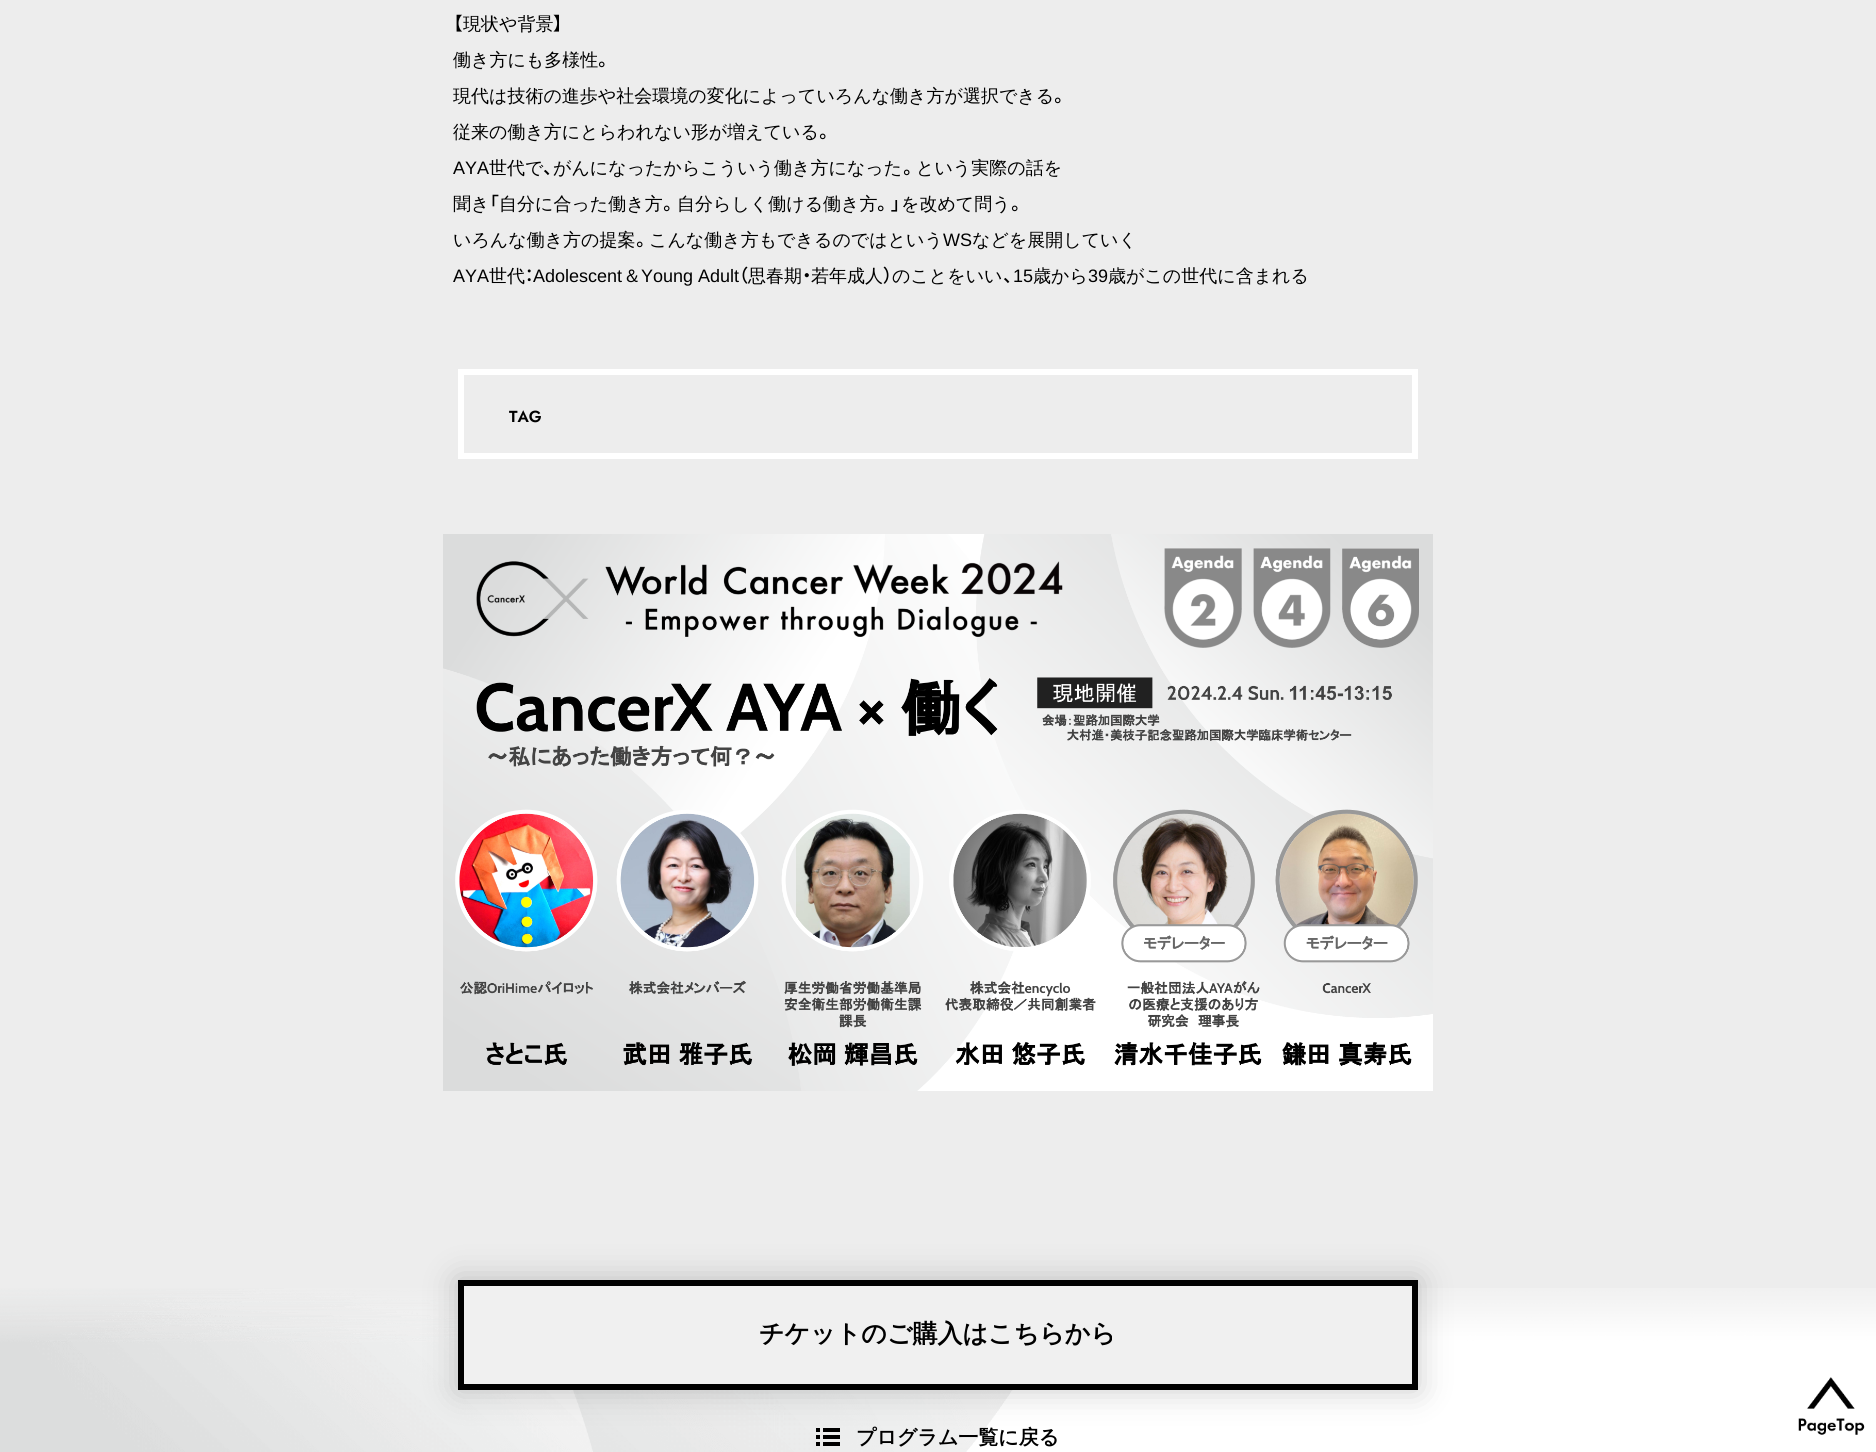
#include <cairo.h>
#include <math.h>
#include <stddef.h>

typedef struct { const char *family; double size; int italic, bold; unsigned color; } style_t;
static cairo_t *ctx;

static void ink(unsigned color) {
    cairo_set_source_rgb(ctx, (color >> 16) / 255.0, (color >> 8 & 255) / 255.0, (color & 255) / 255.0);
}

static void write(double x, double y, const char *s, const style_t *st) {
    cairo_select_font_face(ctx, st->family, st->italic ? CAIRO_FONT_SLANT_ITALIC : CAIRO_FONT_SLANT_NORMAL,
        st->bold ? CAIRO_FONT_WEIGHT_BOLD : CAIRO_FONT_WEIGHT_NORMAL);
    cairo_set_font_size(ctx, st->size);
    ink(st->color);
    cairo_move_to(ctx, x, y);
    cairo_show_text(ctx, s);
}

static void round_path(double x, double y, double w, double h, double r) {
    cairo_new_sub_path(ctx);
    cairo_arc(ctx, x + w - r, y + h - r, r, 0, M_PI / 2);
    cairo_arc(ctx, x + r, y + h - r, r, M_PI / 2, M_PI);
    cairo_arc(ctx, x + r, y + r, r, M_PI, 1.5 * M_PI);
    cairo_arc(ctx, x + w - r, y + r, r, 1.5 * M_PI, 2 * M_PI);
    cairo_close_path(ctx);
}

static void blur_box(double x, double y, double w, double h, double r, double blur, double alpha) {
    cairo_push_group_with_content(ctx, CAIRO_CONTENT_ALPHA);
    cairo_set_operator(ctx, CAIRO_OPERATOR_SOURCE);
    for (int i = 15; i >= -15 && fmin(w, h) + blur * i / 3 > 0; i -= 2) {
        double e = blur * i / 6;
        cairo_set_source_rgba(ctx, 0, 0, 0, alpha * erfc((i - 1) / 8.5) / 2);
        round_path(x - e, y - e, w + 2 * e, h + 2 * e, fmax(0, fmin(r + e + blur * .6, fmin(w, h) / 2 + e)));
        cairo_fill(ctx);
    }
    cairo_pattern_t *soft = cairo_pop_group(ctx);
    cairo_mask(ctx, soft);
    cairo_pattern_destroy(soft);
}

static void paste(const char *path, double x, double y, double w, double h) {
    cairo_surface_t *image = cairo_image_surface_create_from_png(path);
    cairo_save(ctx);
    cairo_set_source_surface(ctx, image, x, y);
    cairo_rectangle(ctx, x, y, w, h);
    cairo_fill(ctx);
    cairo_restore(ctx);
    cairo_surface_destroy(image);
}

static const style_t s1 = {"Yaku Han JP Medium", 18, 0, 0, 0x000000};
static const style_t s2 = {"WenQuanYi Zen Hei Medium", 18, 0, 0, 0x000000};
static const style_t s3 = {"Liberation Sans", 18, 0, 0, 0x000000};
static const style_t s4 = {"Jost SemiBold", 16, 0, 0, 0x000000};
static const style_t s5 = {"WenQuanYi Zen Hei", 25, 0, 1, 0x000000};
static const style_t s6 = {"WenQuanYi Zen Hei", 20, 0, 1, 0x000000};

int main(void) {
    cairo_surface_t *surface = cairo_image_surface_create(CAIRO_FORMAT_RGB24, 1876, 1452);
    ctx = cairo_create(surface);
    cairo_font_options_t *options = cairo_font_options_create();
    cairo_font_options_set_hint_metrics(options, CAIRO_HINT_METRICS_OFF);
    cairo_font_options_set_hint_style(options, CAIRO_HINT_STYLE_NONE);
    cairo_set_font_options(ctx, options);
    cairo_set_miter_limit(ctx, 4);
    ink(0xededed);
    cairo_paint(ctx);
    paste("pic1.png", 0, 1288, 1876, 164);
    write(453, 30, "【", &s1);
    write(463, 30, "現状や背景", &s2);
    write(553, 30, "】", &s1);
    write(453, 66, "働き方にも多様性", &s2);
    write(598, 66, "。", &s1);
    write(453, 102, "現代は技術の進歩や社会環境の変化によっていろんな働き方が選択できる", &s2);
    write(1054, 102, "。", &s1);
    write(453, 138, "従来の働き方にとらわれない形が増えている", &s2);
    write(819, 138, "。", &s1);
    write(453, 174, "AYA", &s3);
    write(489, 174, "世代で", &s2);
    write(543, 174, "、", &s1);
    write(553, 174, "がんになったからこういう働き方になった", &s2);
    write(903, 174, "。", &s1);
    write(916, 174, "という実際の話を", &s2);
    write(453, 210, "聞き", &s2);
    write(489, 210, "「", &s1);
    write(499, 210, "自分に合った働き方", &s2);
    write(663, 210, "。", &s1);
    write(677, 210, "自分らしく働ける働き方", &s2);
    write(877, 210, "。」", &s1);
    write(901, 210, "を改めて問う", &s2);
    write(1011, 210, "。", &s1);
    write(453, 246, "いろんな働き方の提案", &s2);
    write(636, 246, "。", &s1);
    write(649, 246, "こんな働き方もできるのではという", &s2);
    write(943, 246, "WS", &s3);
    write(972, 246, "などを展開していく", &s2);
    write(453, 282, "AYA", &s3);
    write(489, 282, "世代", &s2);
    write(525, 282, "：", &s1);
    write(533, 282, "Adolescent", &s3);
    write(623, 282, "＆", &s2);
    write(641, 282, "Young Adult", &s3);
    write(739, 282, "（", &s1);
    write(748, 282, "思春期", &s2);
    write(802, 282, "・", &s1);
    write(811, 282, "若年成人", &s2);
    write(883, 282, "）", &s1);
    write(892, 282, "のことをいい", &s2);
    write(1013, 282, "15", &s3);
    write(1033, 282, "歳から", &s2);
    write(1088, 282, "39", &s3);
    write(1108, 282, "歳がこの世代に含まれる", &s2);
    write(1003, 282, "、", &s1);
    cairo_rectangle(ctx, 461, 372, 954, 84);
    ink(0xffffff);
    cairo_set_line_width(ctx, 6);
    cairo_stroke(ctx);
    write(509, 422, "TAG", &s4);
    paste("pic2.png", 443, 534, 990, 557);
    ink(0x000000);
    blur_box(457, 1279, 962, 112, 0, 16, 0.2);
    ink(0xf0f0f0);
    cairo_rectangle(ctx, 461, 1283, 954, 104);
    cairo_fill_preserve(ctx);
    ink(0x000000);
    cairo_stroke(ctx);
    write(759, 1342, "チケットのご購入はこちらから", &s5);
    paste("pic3.png", 816, 1428, 24, 18);
    write(856, 1444, "プログラム一覧に戻る", &s6);
    paste("pic4.png", 1798, 1377, 67, 58);
    cairo_surface_write_to_png(surface, "screenshot.png");
    cairo_font_options_destroy(options);
    cairo_destroy(ctx);
    cairo_surface_destroy(surface);
    return 0;
}
